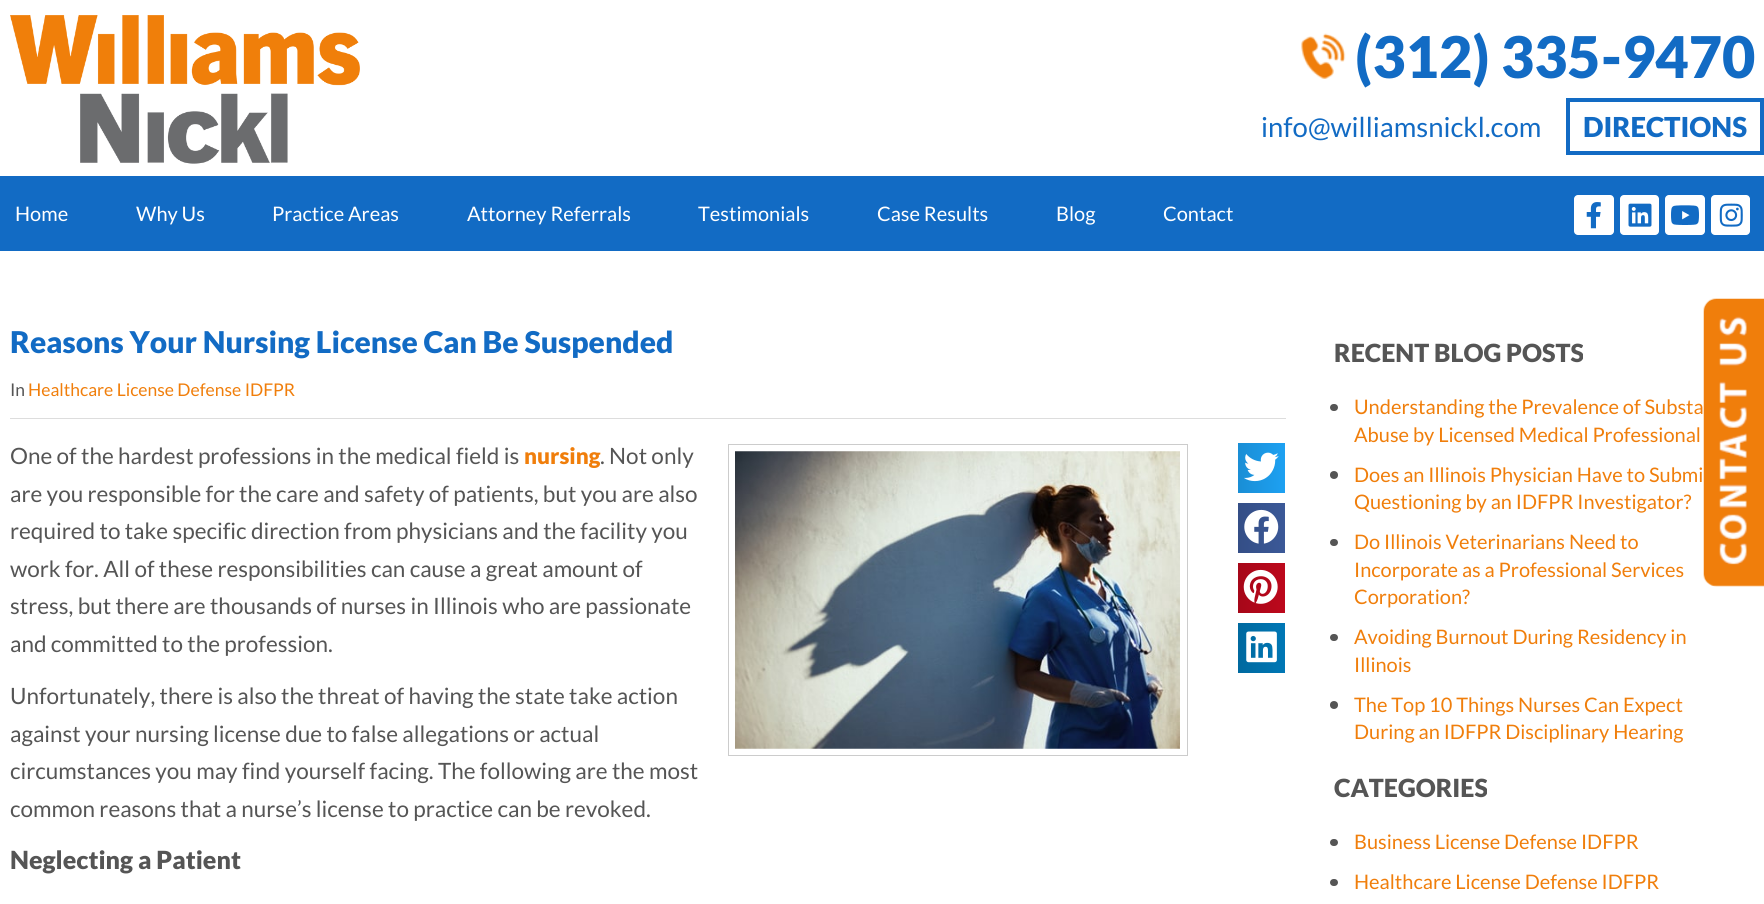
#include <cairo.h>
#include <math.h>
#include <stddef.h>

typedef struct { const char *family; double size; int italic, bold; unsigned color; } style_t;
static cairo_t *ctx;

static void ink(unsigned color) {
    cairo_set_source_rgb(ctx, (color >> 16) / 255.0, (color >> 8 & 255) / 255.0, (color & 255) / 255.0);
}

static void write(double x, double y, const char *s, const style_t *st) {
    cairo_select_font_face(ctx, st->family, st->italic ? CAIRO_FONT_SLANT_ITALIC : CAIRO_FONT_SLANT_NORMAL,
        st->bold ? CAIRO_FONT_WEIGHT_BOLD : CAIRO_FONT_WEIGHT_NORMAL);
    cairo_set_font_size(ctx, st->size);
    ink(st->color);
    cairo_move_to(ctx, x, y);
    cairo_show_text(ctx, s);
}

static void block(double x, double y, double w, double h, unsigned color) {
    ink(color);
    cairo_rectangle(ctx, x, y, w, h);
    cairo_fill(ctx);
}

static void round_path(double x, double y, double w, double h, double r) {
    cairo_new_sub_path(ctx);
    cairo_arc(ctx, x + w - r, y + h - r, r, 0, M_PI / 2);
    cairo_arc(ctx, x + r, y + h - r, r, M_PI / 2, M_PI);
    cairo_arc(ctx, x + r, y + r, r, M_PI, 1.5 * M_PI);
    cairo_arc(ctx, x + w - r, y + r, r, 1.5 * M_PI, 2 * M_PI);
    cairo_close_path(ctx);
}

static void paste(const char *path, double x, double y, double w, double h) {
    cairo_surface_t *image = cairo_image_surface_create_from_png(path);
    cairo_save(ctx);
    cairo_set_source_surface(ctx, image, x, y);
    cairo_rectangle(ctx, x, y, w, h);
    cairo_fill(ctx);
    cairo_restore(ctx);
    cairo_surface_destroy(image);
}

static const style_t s1 = {"Lato Black", 57.5, 0, 0, 0x126bc4};
static const style_t s2 = {"Lato", 27.5, 0, 0, 0x126bc4};
static const style_t s3 = {"Lato Black", 27.5, 0, 0, 0x126bc4};
static const style_t s4 = {"Lato", 20, 0, 0, 0xffffff};
static const style_t s5 = {"Lato Black", 30, 0, 0, 0x126bc4};
static const style_t s6 = {"Lato", 17.5, 0, 0, 0x555555};
static const style_t s7 = {"Lato", 17.5, 0, 0, 0xf07e0b};
static const style_t s8 = {"Lato", 22.5, 0, 0, 0x555555};
static const style_t s9 = {"Lato Black", 22.5, 0, 0, 0xf07e0b};
static const style_t s10 = {"Lato Black", 25, 0, 0, 0x555555};
static const style_t s11 = {"Lato", 20, 0, 0, 0xf07e0b};

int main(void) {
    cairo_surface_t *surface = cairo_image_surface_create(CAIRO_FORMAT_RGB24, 1764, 904);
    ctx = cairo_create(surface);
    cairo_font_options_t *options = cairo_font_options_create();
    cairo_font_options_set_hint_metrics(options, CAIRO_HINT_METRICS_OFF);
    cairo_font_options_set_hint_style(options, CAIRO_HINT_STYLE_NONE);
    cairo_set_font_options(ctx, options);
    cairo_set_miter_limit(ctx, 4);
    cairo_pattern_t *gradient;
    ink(0xffffff);
    cairo_paint(ctx);
    paste("pic1.png", 10, 15, 350, 149);
    paste("pic2.png", 1301, 33, 45, 46);
    write(1355, 78, "(312) 335-9470", &s1);
    write(1261, 137, "info@williamsnickl.com", &s2);
    cairo_rectangle(ctx, 1568, 100, 194, 53);
    cairo_set_line_width(ctx, 4);
    cairo_stroke(ctx);
    write(1583, 137, "DIRECTIONS", &s3);
    block(0, 176, 1764, 75, 0x126bc4);
    write(15, 221, "Home", &s4);
    write(136, 221, "Why Us", &s4);
    write(272, 221, "Practice Areas", &s4);
    write(467, 221, "Attorney Referrals", &s4);
    write(698, 221, "Testimonials", &s4);
    write(877, 221, "Case Results", &s4);
    write(1056, 221, "Blog", &s4);
    write(1163, 221, "Contact", &s4);
    round_path(1574, 195, 40, 40, 4);
    cairo_fill(ctx);
    paste("pic3.png", 1586, 202, 15, 27);
    round_path(1620, 195, 39, 40, 4);
    cairo_fill(ctx);
    paste("pic4.png", 1628, 203, 24, 24);
    round_path(1665, 195, 40, 40, 4);
    cairo_fill(ctx);
    paste("pic5.png", 1671, 205, 28, 20);
    round_path(1711, 195, 39, 40, 4);
    cairo_fill(ctx);
    paste("pic6.png", 1719, 203, 24, 24);
    paste("pic7.png", 1703, 298, 61, 289);
    write(10, 353, "Reasons Your Nursing License Can Be Suspended", &s5);
    write(10, 396, "In", &s6);
    write(28, 396, "Healthcare License Defense IDFPR", &s7);
    block(10, 418, 1276, 1, 0xdddddd);
    write(10, 464, "One of the hardest professions in the medical field is", &s8);
    write(524, 464, "nursing", &s9);
    write(600, 464, ". Not only", &s8);
    cairo_rectangle(ctx, 728.5, 444.5, 459, 311);
    ink(0xcccccc);
    cairo_set_line_width(ctx, 1);
    cairo_stroke(ctx);
    paste("pic8.png", 735, 451, 445, 298);
    write(10, 502, "are you responsible for the care and safety of patients, but you are also", &s8);
    write(10, 539, "required to take specific direction from physicians and the facility you", &s8);
    write(10, 577, "work for. All of these responsibilities can cause a great amount of", &s8);
    write(10, 614, "stress, but there are thousands of nurses in Illinois who are passionate", &s8);
    write(10, 652, "and committed to the profession.", &s8);
    write(10, 704, "Unfortunately, there is also the threat of having the state take action", &s8);
    write(10, 742, "against your nursing license due to false allegations or actual", &s8);
    write(10, 779, "circumstances you may find yourself facing. The following are the most", &s8);
    write(10, 817, "common reasons that a nurse’s license to practice can be revoked.", &s8);
    write(10, 869, "Neglecting a Patient", &s10);
    gradient = cairo_pattern_create_linear(1238, 468, 1285, 468);
    cairo_pattern_add_color_stop_rgba(gradient, 0, 0.102, 0.557, 0.835, 1);
    cairo_pattern_add_color_stop_rgba(gradient, 1, 0.114, 0.631, 0.949, 1);
    cairo_set_source(ctx, gradient);
    cairo_pattern_destroy(gradient);
    cairo_rectangle(ctx, 1238, 443, 47, 50);
    cairo_fill(ctx);
    paste("pic9.png", 1244, 452, 35, 30);
    gradient = cairo_pattern_create_linear(1238, 528, 1285, 528);
    cairo_pattern_add_color_stop_rgba(gradient, 0, 0.204, 0.306, 0.525, 1);
    cairo_pattern_add_color_stop_rgba(gradient, 1, 0.231, 0.349, 0.596, 1);
    cairo_set_source(ctx, gradient);
    cairo_pattern_destroy(gradient);
    cairo_rectangle(ctx, 1238, 503, 47, 50);
    cairo_fill(ctx);
    paste("pic10.png", 1244, 509, 35, 35);
    gradient = cairo_pattern_create_linear(1238, 588, 1285, 588);
    cairo_pattern_add_color_stop_rgba(gradient, 0, 0.651, 0.027, 0.098, 1);
    cairo_pattern_add_color_stop_rgba(gradient, 1, 0.741, 0.031, 0.11, 1);
    cairo_set_source(ctx, gradient);
    cairo_pattern_destroy(gradient);
    cairo_rectangle(ctx, 1238, 563, 47, 50);
    cairo_fill(ctx);
    paste("pic11.png", 1243, 569, 35, 35);
    gradient = cairo_pattern_create_linear(1238, 648, 1285, 648);
    cairo_pattern_add_color_stop_rgba(gradient, 0, 0, 0.412, 0.624, 1);
    cairo_pattern_add_color_stop_rgba(gradient, 1, 0, 0.467, 0.71, 1);
    cairo_set_source(ctx, gradient);
    cairo_pattern_destroy(gradient);
    cairo_rectangle(ctx, 1238, 623, 47, 50);
    cairo_fill(ctx);
    paste("pic12.png", 1246, 631, 31, 32);
    write(1334, 362, "RECENT BLOG POSTS", &s10);
    round_path(1330, 404, 8, 7, 3.5);
    cairo_fill(ctx);
    write(1354, 414, "Understanding the Prevalence of Substa", &s11);
    write(1354, 442, "Abuse by Licensed Medical Professional", &s11);
    ink(0x555555);
    cairo_new_path(ctx);
    cairo_arc(ctx, 1334, 475, 4, 0, 2 * M_PI);
    cairo_fill(ctx);
    write(1354, 482, "Does an Illinois Physician Have to Submi", &s11);
    write(1354, 509, "Questioning by an IDFPR Investigator?", &s11);
    ink(0x555555);
    round_path(1330, 539, 8, 7, 3.5);
    cairo_fill(ctx);
    write(1354, 549, "Do Illinois Veterinarians Need to", &s11);
    write(1354, 577, "Incorporate as a Professional Services", &s11);
    write(1354, 604, "Corporation?", &s11);
    ink(0x555555);
    round_path(1330, 634, 8, 7, 3.5);
    cairo_fill(ctx);
    write(1354, 644, "Avoiding Burnout During Residency in", &s11);
    write(1354, 672, "Illinois", &s11);
    ink(0x555555);
    cairo_new_path(ctx);
    cairo_arc(ctx, 1334, 705, 4, 0, 2 * M_PI);
    cairo_fill(ctx);
    write(1354, 712, "The Top 10 Things Nurses Can Expect", &s11);
    write(1354, 739, "During an IDFPR Disciplinary Hearing", &s11);
    write(1334, 797, "CATEGORIES", &s10);
    round_path(1330, 839, 8, 7, 3.5);
    cairo_fill(ctx);
    write(1354, 849, "Business License Defense IDFPR", &s11);
    ink(0x555555);
    round_path(1330, 879, 8, 7, 3.5);
    cairo_fill(ctx);
    write(1354, 889, "Healthcare License Defense IDFPR", &s11);
    cairo_surface_write_to_png(surface, "screenshot.png");
    cairo_font_options_destroy(options);
    cairo_destroy(ctx);
    cairo_surface_destroy(surface);
    return 0;
}
